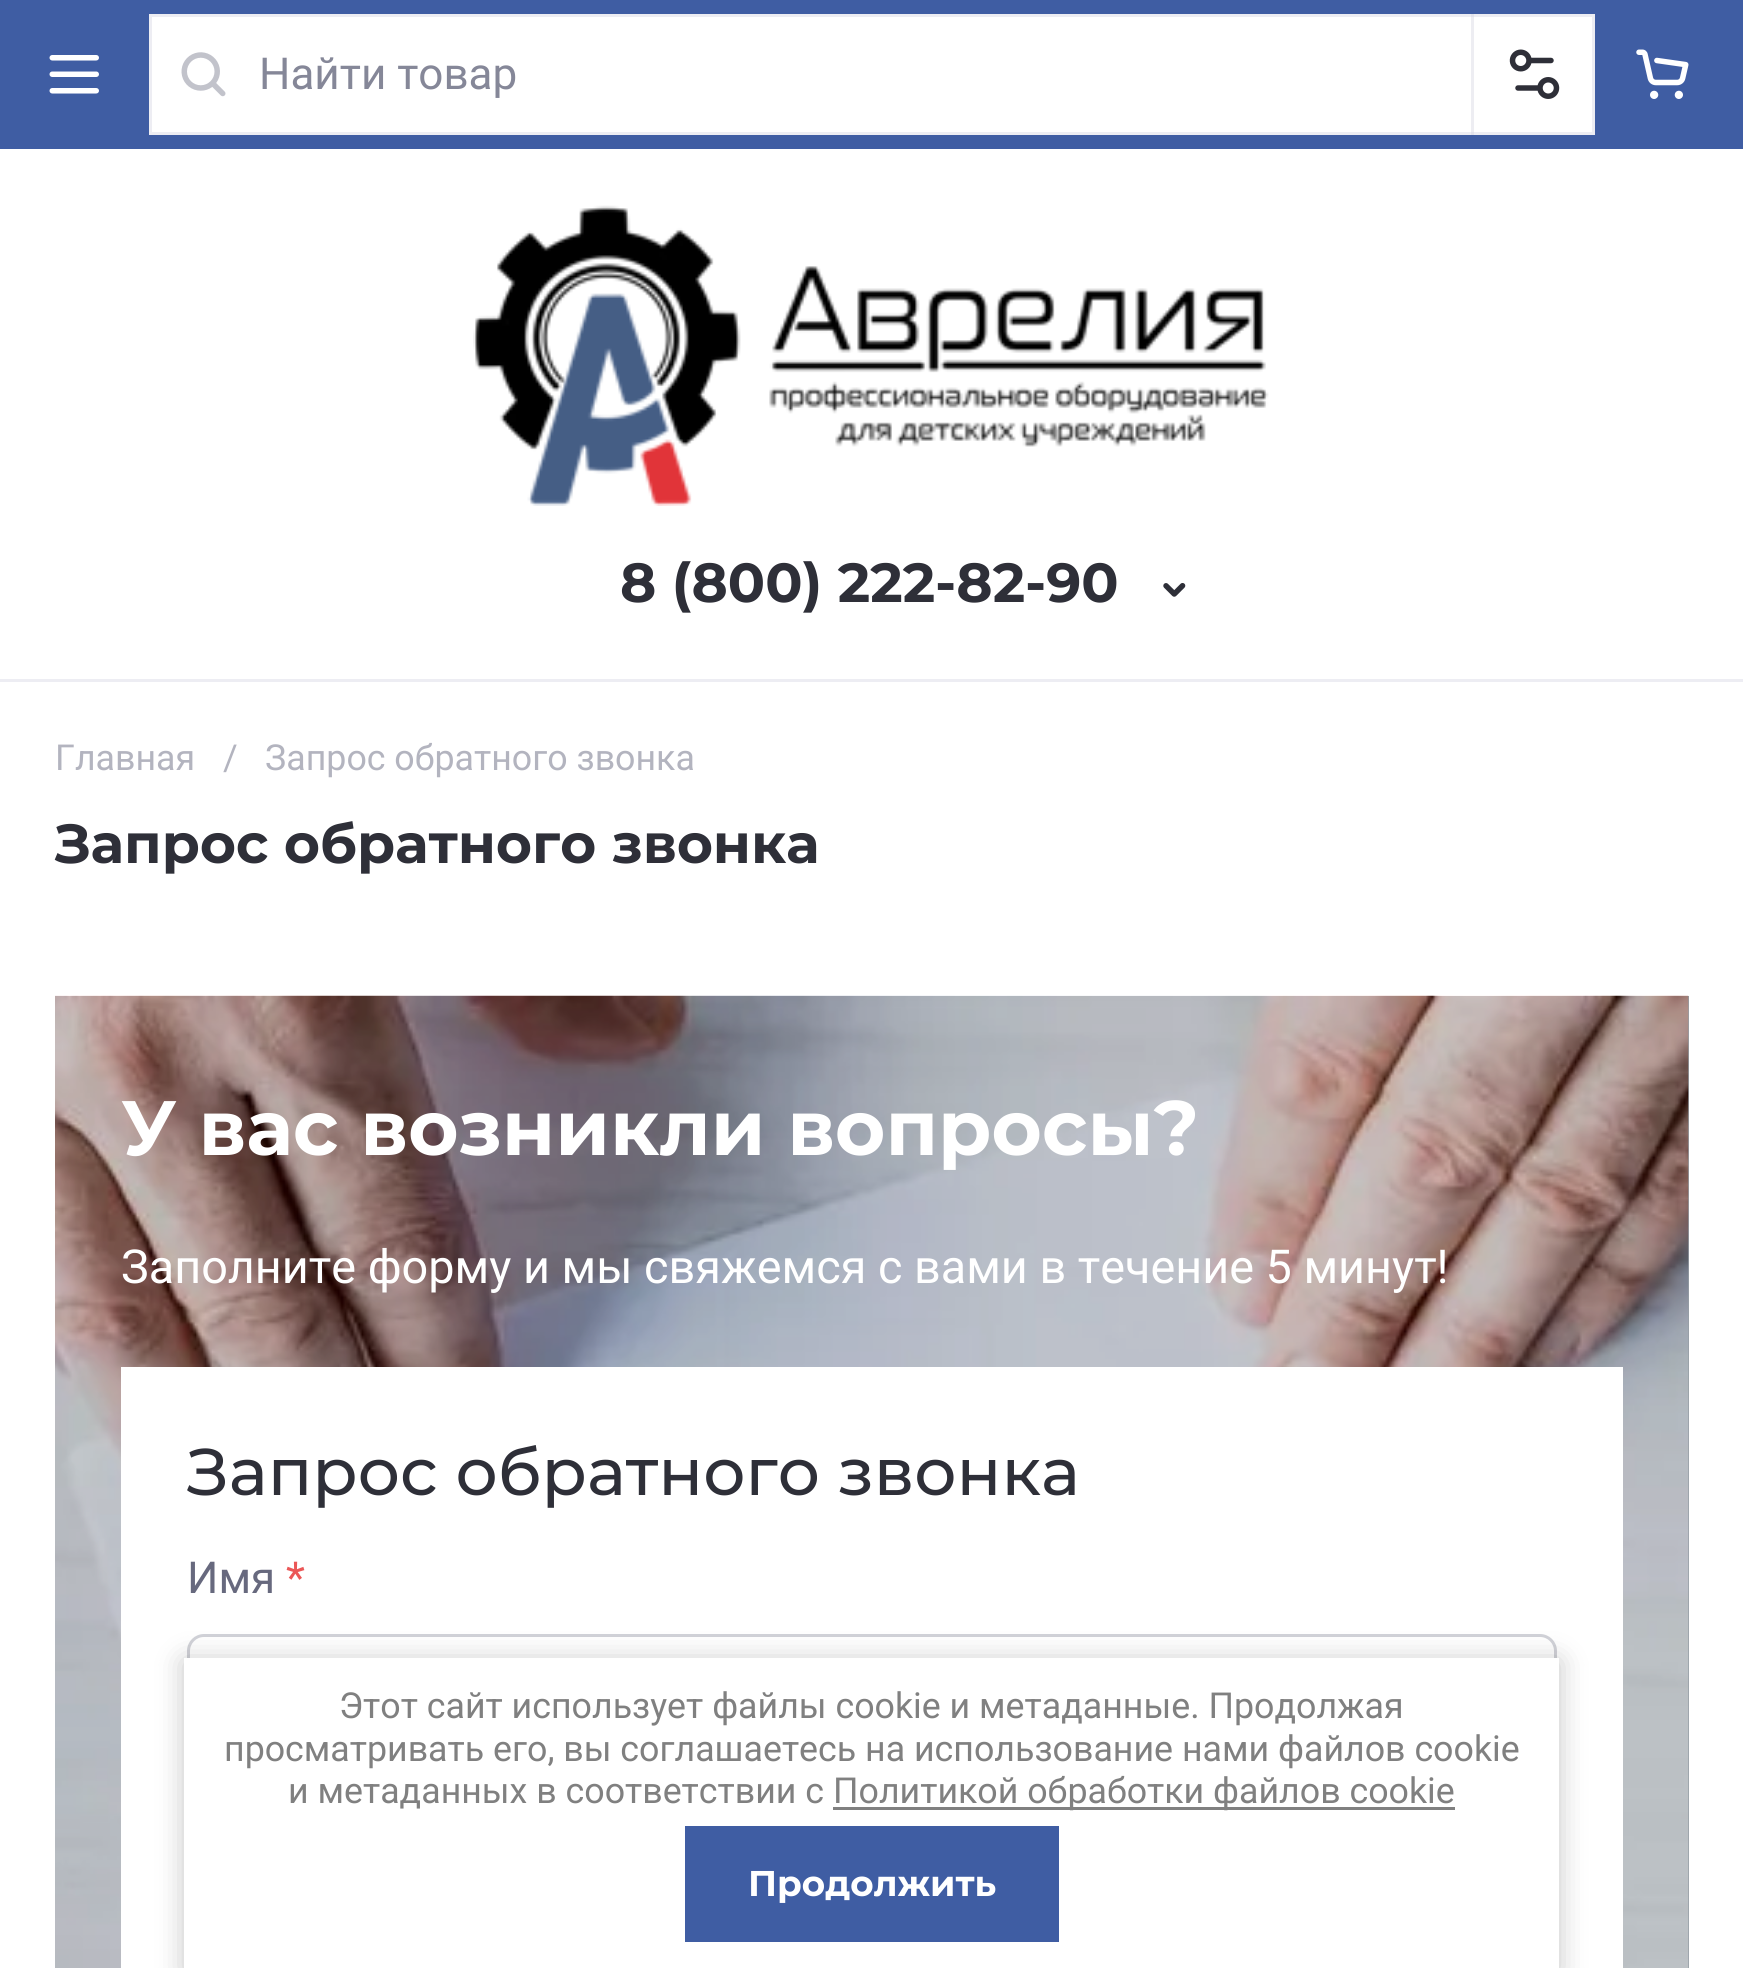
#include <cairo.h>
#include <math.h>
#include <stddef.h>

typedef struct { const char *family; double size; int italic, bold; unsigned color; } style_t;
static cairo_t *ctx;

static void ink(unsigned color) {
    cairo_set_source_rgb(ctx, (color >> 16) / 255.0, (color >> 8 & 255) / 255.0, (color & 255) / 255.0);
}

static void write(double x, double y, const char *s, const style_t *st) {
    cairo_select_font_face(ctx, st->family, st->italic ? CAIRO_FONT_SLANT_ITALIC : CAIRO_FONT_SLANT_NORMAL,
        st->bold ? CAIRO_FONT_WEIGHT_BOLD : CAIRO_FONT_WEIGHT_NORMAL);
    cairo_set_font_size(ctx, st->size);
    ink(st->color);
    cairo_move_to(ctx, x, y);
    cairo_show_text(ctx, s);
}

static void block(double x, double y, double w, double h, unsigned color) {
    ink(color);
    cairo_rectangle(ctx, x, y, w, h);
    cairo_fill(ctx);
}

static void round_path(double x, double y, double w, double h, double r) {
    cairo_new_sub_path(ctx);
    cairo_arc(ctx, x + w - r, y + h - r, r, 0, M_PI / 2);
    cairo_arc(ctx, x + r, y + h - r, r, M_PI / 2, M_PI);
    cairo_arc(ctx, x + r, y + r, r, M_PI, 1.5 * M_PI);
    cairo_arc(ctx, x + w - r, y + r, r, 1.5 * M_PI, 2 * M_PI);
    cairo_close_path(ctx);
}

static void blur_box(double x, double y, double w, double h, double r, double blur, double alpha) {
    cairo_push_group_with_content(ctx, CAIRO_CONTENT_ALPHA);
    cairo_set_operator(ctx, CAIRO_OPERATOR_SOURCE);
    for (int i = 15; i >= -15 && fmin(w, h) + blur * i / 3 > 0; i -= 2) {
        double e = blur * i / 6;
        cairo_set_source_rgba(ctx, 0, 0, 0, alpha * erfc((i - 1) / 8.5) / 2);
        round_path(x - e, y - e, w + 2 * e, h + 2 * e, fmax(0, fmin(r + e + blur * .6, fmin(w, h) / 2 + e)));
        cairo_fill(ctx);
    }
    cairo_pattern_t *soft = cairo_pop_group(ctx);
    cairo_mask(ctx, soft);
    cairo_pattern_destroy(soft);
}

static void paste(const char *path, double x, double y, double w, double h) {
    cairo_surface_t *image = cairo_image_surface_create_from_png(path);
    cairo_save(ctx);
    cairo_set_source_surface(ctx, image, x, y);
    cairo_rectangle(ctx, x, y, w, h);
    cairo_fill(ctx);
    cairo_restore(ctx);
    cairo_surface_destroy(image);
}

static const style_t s1 = {"Roboto", 44, 0, 0, 0x858798};
static const style_t s2 = {"Montserrat", 55, 0, 1, 0x2e2f38};
static const style_t s3 = {"Roboto", 35.75, 0, 0, 0xb3b4bf};
static const style_t s4 = {"Montserrat", 77, 0, 1, 0xffffff};
static const style_t s5 = {"Roboto", 46.75, 0, 0, 0xffffff};
static const style_t s6 = {"Montserrat Medium", 66, 0, 0, 0x2e2f38};
static const style_t s7 = {"Roboto", 44, 0, 0, 0x67697e};
static const style_t s8 = {"Roboto", 44, 0, 0, 0xeb5757};
static const style_t s9 = {"Roboto", 35.75, 0, 0, 0x808080};
static const style_t s10 = {"Montserrat", 35.75, 0, 1, 0xffffff};

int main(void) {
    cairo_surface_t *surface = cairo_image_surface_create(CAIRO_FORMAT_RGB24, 1743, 1968);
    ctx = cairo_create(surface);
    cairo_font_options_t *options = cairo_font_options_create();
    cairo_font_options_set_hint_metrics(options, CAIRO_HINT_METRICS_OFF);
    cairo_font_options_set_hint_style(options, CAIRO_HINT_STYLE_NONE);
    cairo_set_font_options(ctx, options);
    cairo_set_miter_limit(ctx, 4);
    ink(0xffffff);
    cairo_paint(ctx);
    block(0, 0, 1743, 149, 0x3f5da3);
    paste("pic1.png", 49, 55, 50, 39);
    ink(0xffffff);
    cairo_rectangle(ctx, 150.5, 15.5, 1443, 118);
    cairo_fill_preserve(ctx);
    ink(0xededf3);
    cairo_set_line_width(ctx, 3);
    cairo_stroke(ctx);
    paste("pic2.png", 181, 52, 45, 45);
    write(259, 89, "Найти товар", &s1);
    cairo_set_source_rgba(ctx, 0.824, 0.827, 0.878, 0.4);
    cairo_rectangle(ctx, 1471, 14, 3, 121);
    cairo_fill(ctx);
    paste("pic3.png", 1509, 49, 51, 50);
    paste("pic4.png", 1636, 49, 53, 50);
    block(0, 679, 1743, 3, 0xededf3);
    paste("pic5.png", 473, 205, 796, 301);
    write(620, 602, "8 (800) 222-82-90", &s2);
    paste("pic6.png", 1163, 583, 23, 14);
    write(55, 770, "Главная", &s3);
    write(223, 770, "/", &s3);
    write(265, 770, "Запрос обратного звонка", &s3);
    write(55, 863, "Запрос обратного звонка", &s2);
    block(1688, 996, 1, 972, 0x969da4);
    paste("pic7.png", 55, 995, 1634, 973);
    write(121, 1155, "У вас возникли вопросы?", &s4);
    write(121, 1283, "Заполните форму и мы свяжемся с вами в течение 5 минут!", &s5);
    block(121, 1367, 1502, 601, 0xffffff);
    write(187, 1495, "Запрос обратного звонка", &s6);
    write(187, 1593, "Имя", &s7);
    write(286, 1593, "*", &s8);
    round_path(188.5, 1635.5, 1367, 134, 15.5);
    ink(0xd1d2d8);
    cairo_stroke(ctx);
    ink(0x000000);
    blur_box(184, 1661, 1375, 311, 0, 14, 0.23);
    block(184, 1658, 1375, 310, 0xffffff);
    write(339, 1718, "Этот сайт использует файлы cookie и метаданные. Продолжая", &s9);
    write(224, 1761, "просматривать его, вы соглашаетесь на использование нами файлов cookie", &s9);
    write(288, 1803, "и метаданных в соответствии с", &s9);
    block(833, 1807, 622, 3, 0x808080);
    write(833, 1803, "Политикой обработки файлов cookie", &s9);
    block(685, 1826, 374, 116, 0x3f5da3);
    write(748, 1896, "Продолжить", &s10);
    cairo_surface_write_to_png(surface, "screenshot.png");
    cairo_font_options_destroy(options);
    cairo_destroy(ctx);
    cairo_surface_destroy(surface);
    return 0;
}
